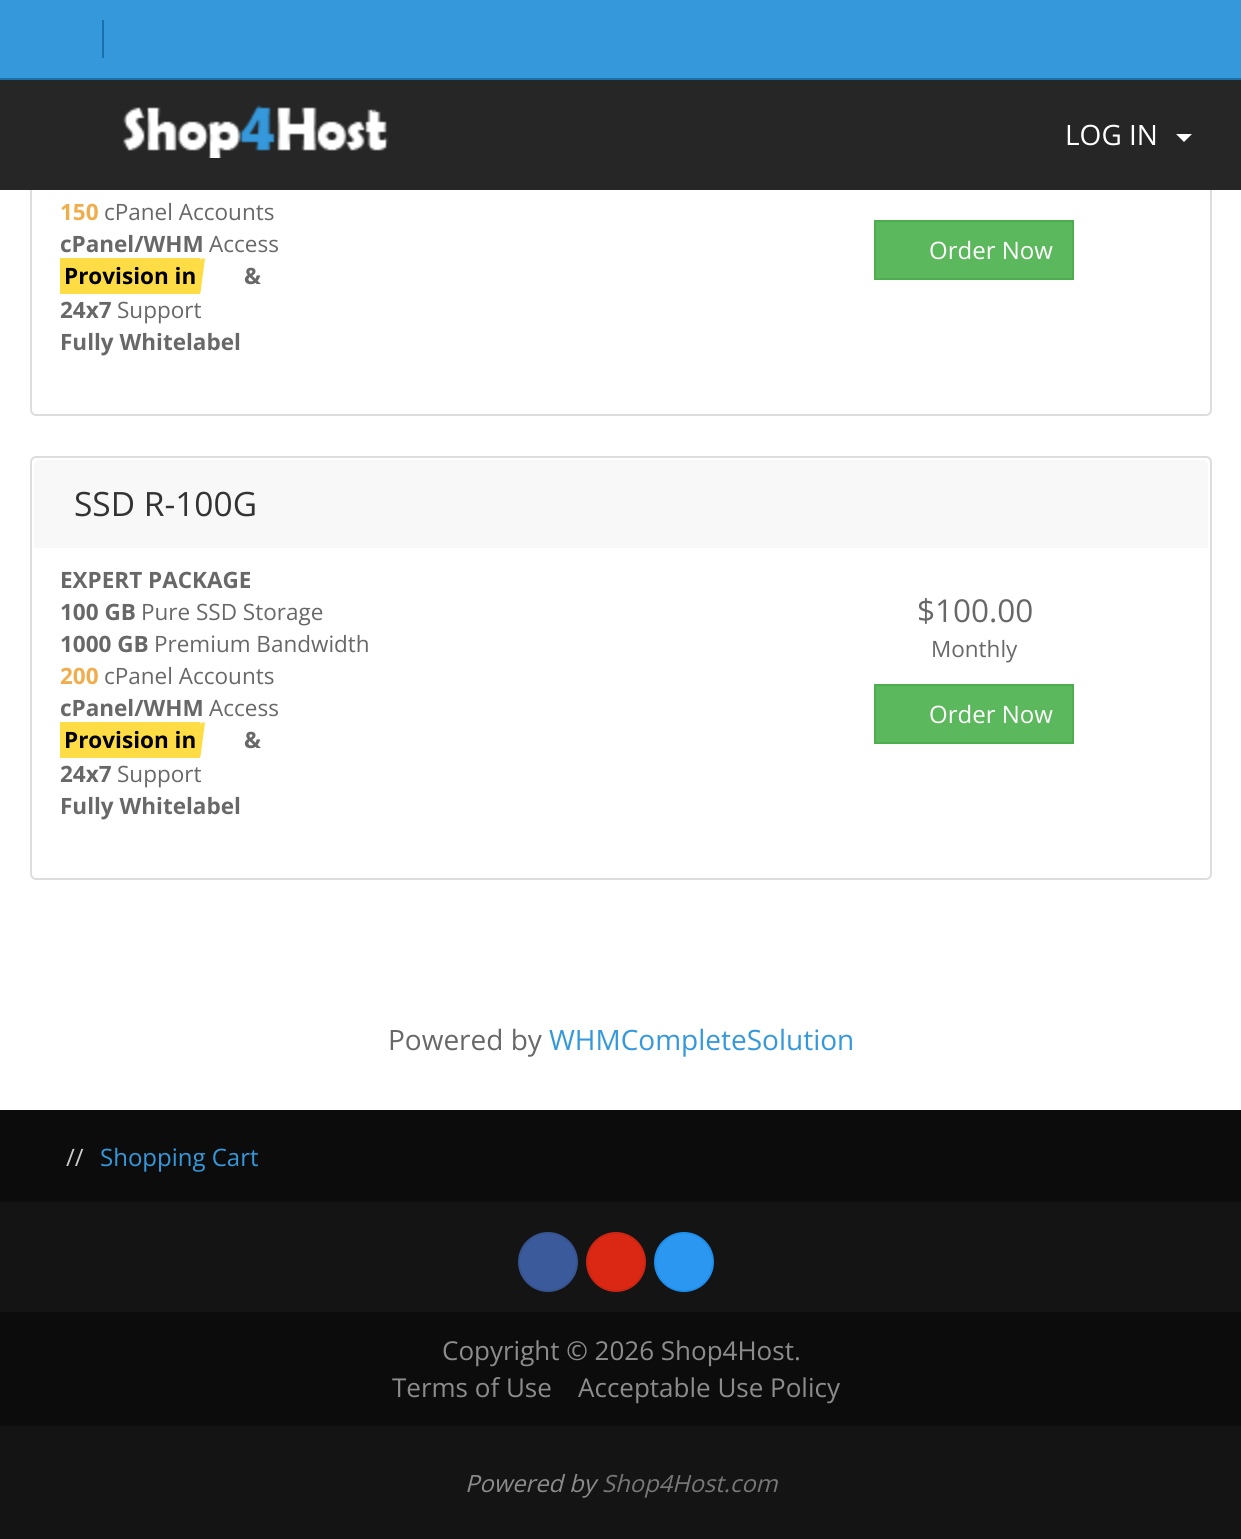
#include <cairo.h>
#include <math.h>
#include <stddef.h>

typedef struct { const char *family; double size; int italic, bold; unsigned color; } style_t;
static cairo_t *ctx;

static void ink(unsigned color) {
    cairo_set_source_rgb(ctx, (color >> 16) / 255.0, (color >> 8 & 255) / 255.0, (color & 255) / 255.0);
}

static void write(double x, double y, const char *s, const style_t *st) {
    cairo_select_font_face(ctx, st->family, st->italic ? CAIRO_FONT_SLANT_ITALIC : CAIRO_FONT_SLANT_NORMAL,
        st->bold ? CAIRO_FONT_WEIGHT_BOLD : CAIRO_FONT_WEIGHT_NORMAL);
    cairo_set_font_size(ctx, st->size);
    ink(st->color);
    cairo_move_to(ctx, x, y);
    cairo_show_text(ctx, s);
}

static void block(double x, double y, double w, double h, unsigned color) {
    ink(color);
    cairo_rectangle(ctx, x, y, w, h);
    cairo_fill(ctx);
}

static void round_path(double x, double y, double w, double h, double r) {
    cairo_new_sub_path(ctx);
    cairo_arc(ctx, x + w - r, y + h - r, r, 0, M_PI / 2);
    cairo_arc(ctx, x + r, y + h - r, r, M_PI / 2, M_PI);
    cairo_arc(ctx, x + r, y + r, r, M_PI, 1.5 * M_PI);
    cairo_arc(ctx, x + w - r, y + r, r, 1.5 * M_PI, 2 * M_PI);
    cairo_close_path(ctx);
}

static void paste(const char *path, double x, double y, double w, double h) {
    cairo_surface_t *image = cairo_image_surface_create_from_png(path);
    cairo_save(ctx);
    cairo_set_source_surface(ctx, image, x, y);
    cairo_rectangle(ctx, x, y, w, h);
    cairo_fill(ctx);
    cairo_restore(ctx);
    cairo_surface_destroy(image);
}

static const style_t s1 = {"Open Sans", 28, 0, 0, 0xffffff};
static const style_t s2 = {"Open Sans", 22.5, 0, 1, 0xf0ad4e};
static const style_t s3 = {"Open Sans", 22.5, 0, 0, 0x686868};
static const style_t s4 = {"Open Sans", 22.5, 0, 1, 0x686868};
static const style_t s5 = {"Open Sans", 22.5, 0, 1, 0x000000};
static const style_t s6 = {"Open Sans", 24, 0, 0, 0xffffff};
static const style_t s7 = {"Open Sans", 33.5, 0, 0, 0x333333};
static const style_t s8 = {"Open Sans", 31.5, 0, 0, 0x686868};
static const style_t s9 = {"Open Sans", 28, 0, 0, 0x686868};
static const style_t s10 = {"Open Sans", 28, 0, 0, 0x3498db};
static const style_t s11 = {"Open Sans", 24, 0, 0, 0xcccccc};
static const style_t s12 = {"Open Sans", 24, 0, 0, 0x3498db};
static const style_t s13 = {"Open Sans", 26, 0, 0, 0x8c8c8c};
static const style_t s14 = {"Open Sans", 23.75, 1, 0, 0x8c8c8c};
static const style_t s15 = {"Open Sans", 23.75, 1, 0, 0x777777};

int main(void) {
    cairo_surface_t *surface = cairo_image_surface_create(CAIRO_FORMAT_RGB24, 1241, 1539);
    ctx = cairo_create(surface);
    cairo_font_options_t *options = cairo_font_options_create();
    cairo_font_options_set_hint_metrics(options, CAIRO_HINT_METRICS_OFF);
    cairo_font_options_set_hint_style(options, CAIRO_HINT_STYLE_NONE);
    cairo_set_font_options(ctx, options);
    cairo_set_miter_limit(ctx, 4);
    ink(0xffffff);
    cairo_paint(ctx);
    round_path(31, -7, 1180, 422, 5);
    ink(0xdddddd);
    cairo_stroke(ctx);
    block(0, 0, 1241, 78, 0x3498db);
    block(0, 78, 1241, 2, 0x1971ab);
    block(102, 20, 2, 38, 0x1971ab);
    block(0, 80, 1241, 110, 0x262626);
    paste("pic1.png", 123, 105, 266, 53);
    write(1065, 145, "LOG IN", &s1);
    cairo_new_path(ctx);
    cairo_move_to(ctx, 1176, 134);
    cairo_line_to(ctx, 1192, 134);
    cairo_line_to(ctx, 1184, 142);
    cairo_close_path(ctx);
    cairo_fill(ctx);
    write(60, 220, "150", &s2);
    write(104, 220, "cPanel Accounts", &s3);
    write(60, 252, "cPanel/WHM", &s4);
    write(209, 252, "Access", &s3);
    block(60, 258, 140, 36, 0xfedc45);
    write(64, 284, "Provision in", &s5);
    ink(0xfedc45);
    cairo_new_path(ctx);
    cairo_move_to(ctx, 200.5, 258.5);
    cairo_line_to(ctx, 205, 258.5);
    cairo_line_to(ctx, 200.5, 293);
    cairo_line_to(ctx, 196, 293);
    cairo_close_path(ctx);
    cairo_fill(ctx);
    write(244, 284, "&", &s4);
    write(60, 318, "24x7", &s4);
    write(117, 318, "Support", &s3);
    write(60, 350, "Fully Whitelabel", &s4);
    ink(0x5cb85c);
    cairo_rectangle(ctx, 875, 221, 198, 58);
    cairo_fill_preserve(ctx);
    ink(0x4cae4c);
    cairo_stroke(ctx);
    write(929, 259, "Order Now", &s6);
    round_path(31, 457, 1180, 422, 5);
    ink(0xdddddd);
    cairo_stroke(ctx);
    ink(0xf8f8f8);
    cairo_new_path(ctx);
    cairo_move_to(ctx, 40, 460);
    cairo_line_to(ctx, 1202, 460);
    cairo_curve_to(ctx, 1205.5, 460, 1208, 462.5, 1208, 466);
    cairo_line_to(ctx, 1208, 548);
    cairo_line_to(ctx, 34, 548);
    cairo_line_to(ctx, 34, 466);
    cairo_curve_to(ctx, 34, 462.5, 36.5, 460, 40, 460);
    cairo_close_path(ctx);
    cairo_fill(ctx);
    write(74, 516, "SSD R-100G", &s7);
    write(60, 588, "EXPERT PACKAGE", &s4);
    write(60, 620, "100 GB", &s4);
    write(141, 620, "Pure SSD Storage", &s3);
    write(60, 652, "1000 GB", &s4);
    write(154, 652, "Premium Bandwidth", &s3);
    write(60, 684, "200", &s2);
    write(104, 684, "cPanel Accounts", &s3);
    write(60, 716, "cPanel/WHM", &s4);
    write(209, 716, "Access", &s3);
    block(60, 722, 140, 36, 0xfedc45);
    write(64, 748, "Provision in", &s5);
    ink(0xfedc45);
    cairo_new_path(ctx);
    cairo_move_to(ctx, 200.5, 722.5);
    cairo_line_to(ctx, 205, 722.5);
    cairo_line_to(ctx, 200.5, 756.5);
    cairo_line_to(ctx, 196, 756.5);
    cairo_close_path(ctx);
    cairo_fill(ctx);
    write(244, 748, "&", &s4);
    write(60, 782, "24x7", &s4);
    write(117, 782, "Support", &s3);
    write(60, 814, "Fully Whitelabel", &s4);
    write(917, 622, "$100.00", &s8);
    write(931, 657, "Monthly", &s3);
    ink(0x5cb85c);
    cairo_rectangle(ctx, 875, 685, 198, 58);
    cairo_fill_preserve(ctx);
    ink(0x4cae4c);
    cairo_stroke(ctx);
    write(929, 723, "Order Now", &s6);
    write(388, 1050, "Powered by", &s9);
    write(549, 1050, "WHMCompleteSolution", &s10);
    block(0, 1110, 1241, 92, 0x0c0c0c);
    write(66, 1166, "//", &s11);
    write(100, 1166, "Shopping Cart", &s12);
    block(0, 1202, 1241, 337, 0x141414);
    ink(0x3b5a9b);
    cairo_new_path(ctx);
    cairo_arc(ctx, 548, 1262, 29, 0, 2 * M_PI);
    cairo_fill_preserve(ctx);
    ink(0x375490);
    cairo_stroke(ctx);
    ink(0xdb2814);
    cairo_arc(ctx, 616, 1262, 29, 0, 2 * M_PI);
    cairo_fill_preserve(ctx);
    ink(0xcd2513);
    cairo_stroke(ctx);
    ink(0x2b97f0);
    cairo_arc(ctx, 684, 1262, 29, 0, 2 * M_PI);
    cairo_fill_preserve(ctx);
    ink(0x1d90ef);
    cairo_stroke(ctx);
    block(0, 1312, 1241, 114, 0x0c0c0c);
    write(442, 1360, "Copyright © 2026 Shop4Host.", &s13);
    write(392, 1397, "Terms of Use", &s13);
    write(578, 1397, "Acceptable Use Policy", &s13);
    write(465, 1492, "Powered by", &s14);
    write(602, 1492, "Shop4Host.com", &s15);
    cairo_surface_write_to_png(surface, "screenshot.png");
    cairo_font_options_destroy(options);
    cairo_destroy(ctx);
    cairo_surface_destroy(surface);
    return 0;
}
